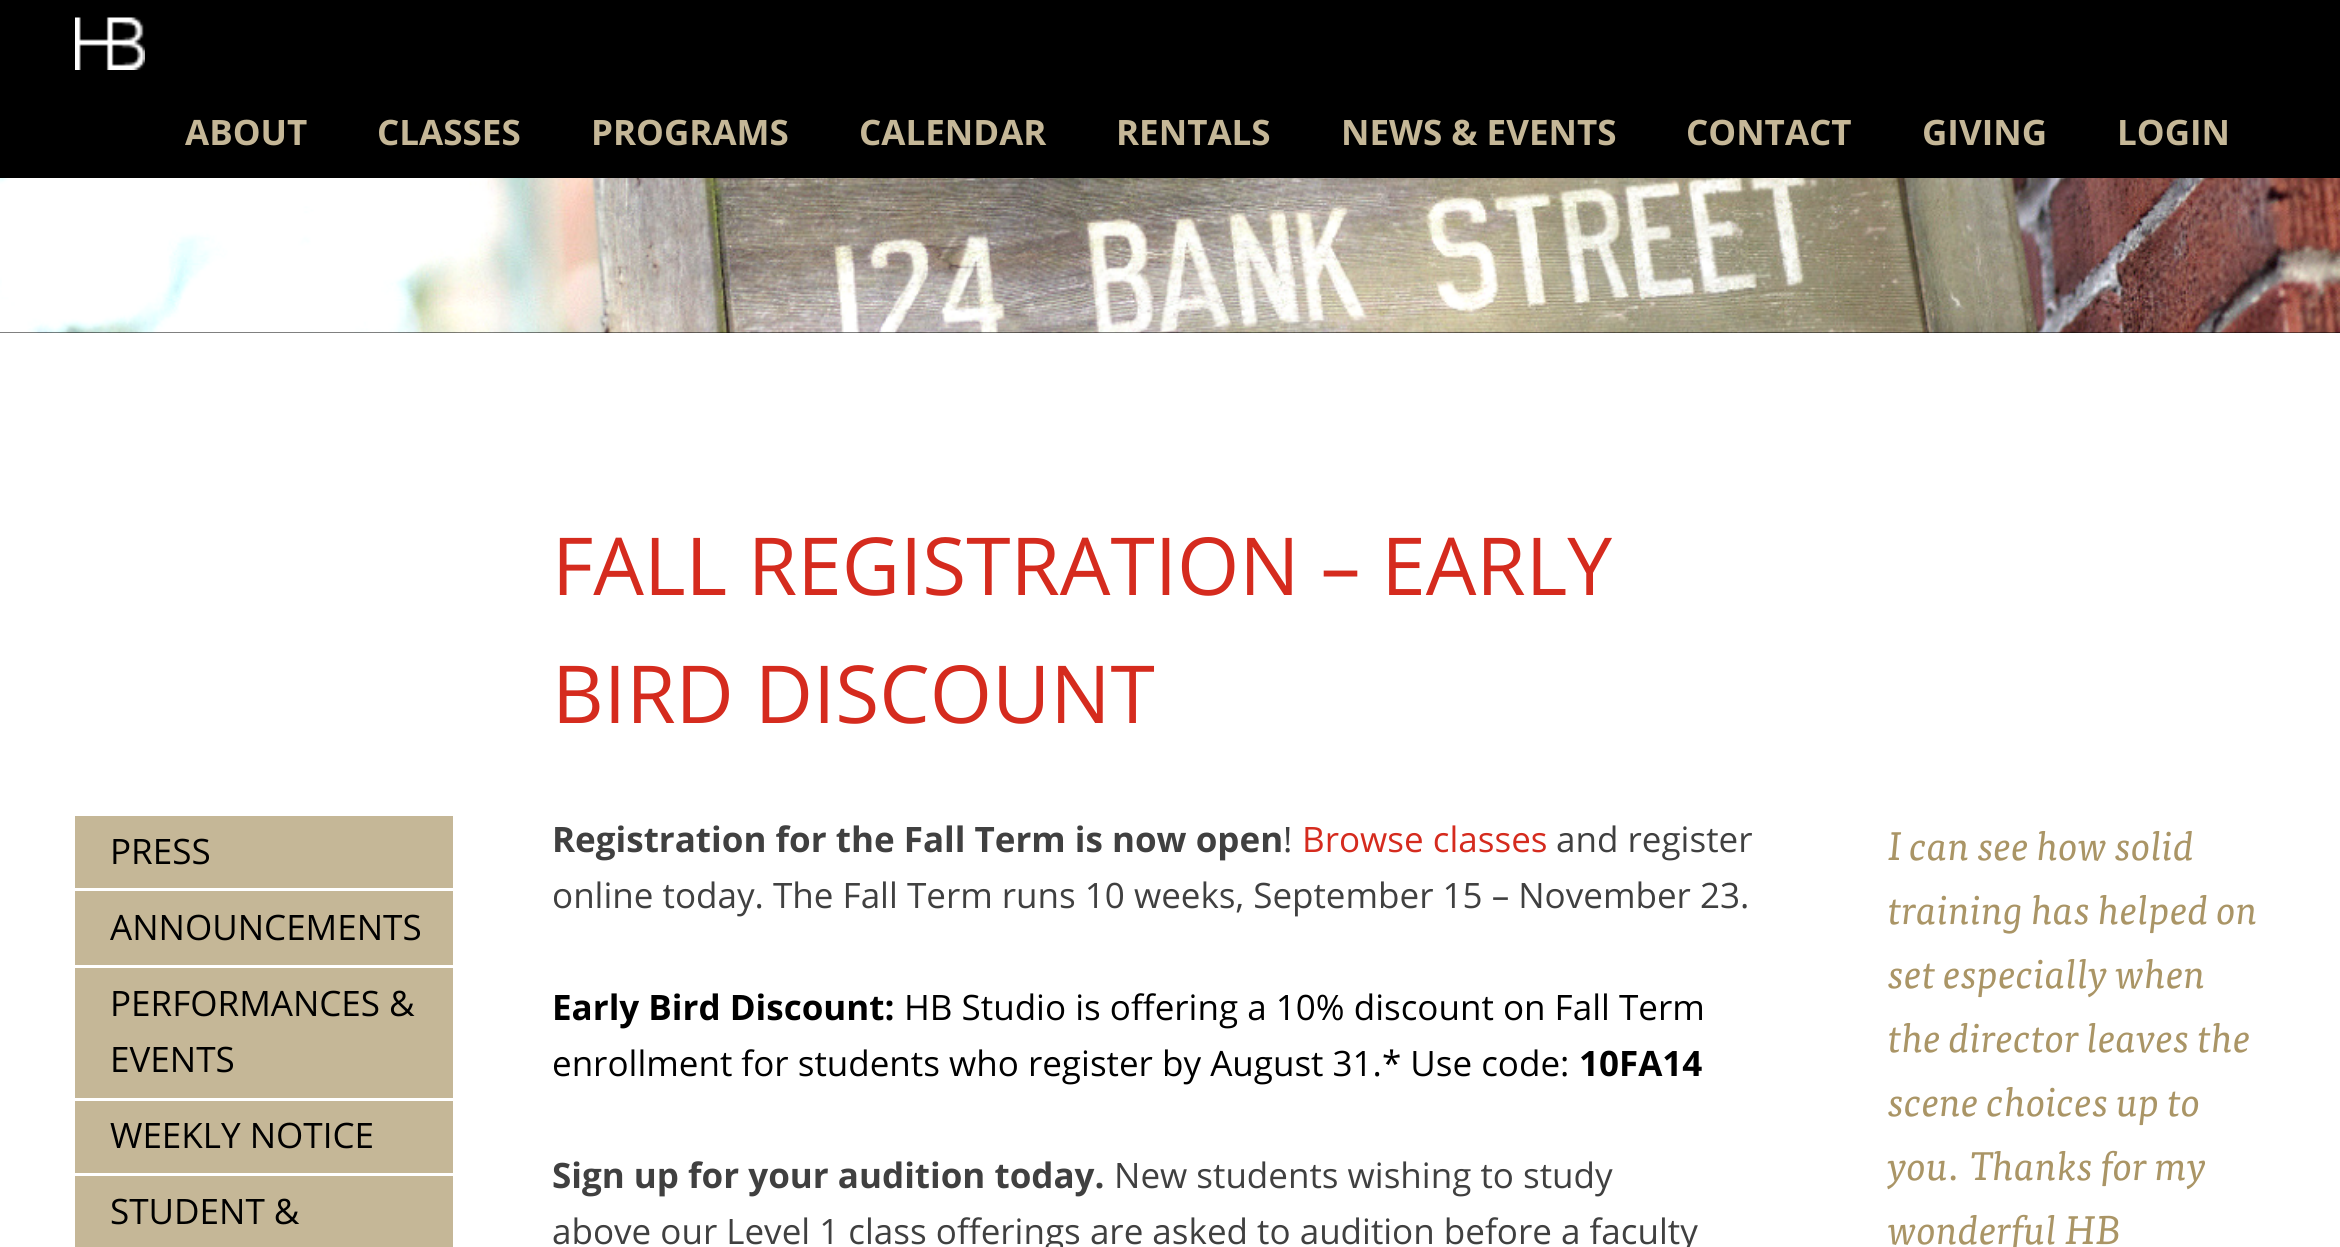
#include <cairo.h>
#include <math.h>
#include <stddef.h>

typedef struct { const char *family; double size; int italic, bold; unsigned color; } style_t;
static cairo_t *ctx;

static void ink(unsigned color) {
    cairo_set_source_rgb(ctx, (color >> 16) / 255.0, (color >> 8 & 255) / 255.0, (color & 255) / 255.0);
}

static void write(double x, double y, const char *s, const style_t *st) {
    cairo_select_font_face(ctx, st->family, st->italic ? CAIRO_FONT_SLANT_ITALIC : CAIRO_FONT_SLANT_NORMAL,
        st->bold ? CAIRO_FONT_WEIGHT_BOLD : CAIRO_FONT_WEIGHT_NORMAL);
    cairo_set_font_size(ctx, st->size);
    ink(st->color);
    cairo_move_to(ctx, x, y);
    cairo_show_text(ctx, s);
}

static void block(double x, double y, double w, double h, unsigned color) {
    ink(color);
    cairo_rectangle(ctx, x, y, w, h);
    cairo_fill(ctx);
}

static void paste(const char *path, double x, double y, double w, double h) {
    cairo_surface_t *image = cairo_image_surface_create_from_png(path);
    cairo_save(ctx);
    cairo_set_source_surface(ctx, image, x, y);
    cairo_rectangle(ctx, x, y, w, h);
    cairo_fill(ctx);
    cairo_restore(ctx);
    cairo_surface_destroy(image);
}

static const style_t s1 = {"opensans", 35, 0, 1, 0xc5b797};
static const style_t s2 = {"opensans", 35, 0, 0, 0x000000};
static const style_t s3 = {"opensans", 80, 0, 0, 0xd52b1e};
static const style_t s4 = {"opensans", 35, 0, 1, 0x404040};
static const style_t s5 = {"opensans", 35, 0, 0, 0x404040};
static const style_t s6 = {"opensans", 35, 0, 0, 0xd52b1e};
static const style_t s7 = {"opensans", 35, 0, 1, 0x000000};
static const style_t s8 = {"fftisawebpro", 40, 1, 0, 0xaa9566};

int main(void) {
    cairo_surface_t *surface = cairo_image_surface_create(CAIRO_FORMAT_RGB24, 2340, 1247);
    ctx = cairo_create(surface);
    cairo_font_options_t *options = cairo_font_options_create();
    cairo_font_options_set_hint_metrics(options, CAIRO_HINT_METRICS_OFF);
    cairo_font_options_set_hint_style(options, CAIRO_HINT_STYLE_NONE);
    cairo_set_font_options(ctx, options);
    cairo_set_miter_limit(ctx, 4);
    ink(0x000000);
    cairo_paint(ctx);
    paste("pic1.png", 75, 17, 70, 53);
    write(185, 145, "ABOUT", &s1);
    write(377, 145, "CLASSES", &s1);
    write(591, 145, "PROGRAMS", &s1);
    write(859, 145, "CALENDAR", &s1);
    write(1116, 145, "RENTALS", &s1);
    write(1341, 145, "NEWS & EVENTS", &s1);
    write(1686, 145, "CONTACT", &s1);
    write(1922, 145, "GIVING", &s1);
    write(2117, 145, "LOGIN", &s1);
    paste("pic2.png", 0, 178, 2340, 155);
    block(0, 333, 2340, 914, 0xffffff);
    block(75, 816, 378, 431, 0xc5b797);
    write(110, 864, "PRESS", &s2);
    block(75, 888, 378, 3, 0xffffff);
    write(110, 940, "ANNOUNCEMENTS", &s2);
    block(75, 965, 378, 3, 0xffffff);
    write(110, 1016, "PERFORMANCES &", &s2);
    write(110, 1072, "EVENTS", &s2);
    block(75, 1098, 378, 3, 0xffffff);
    write(110, 1148, "WEEKLY NOTICE", &s2);
    block(75, 1173, 378, 3, 0xffffff);
    write(110, 1224, "STUDENT &", &s2);
    write(552, 595, "FALL REGISTRATION – EARLY", &s3);
    write(552, 723, "BIRD DISCOUNT", &s3);
    write(552, 852, "Registration for the Fall Term is now open", &s4);
    write(1283, 852, "!", &s5);
    write(1302, 852, "Browse classes", &s6);
    write(1556, 852, "and register", &s5);
    write(552, 908, "online today. The Fall Term runs 10 weeks, September 15 – November 23.", &s5);
    write(552, 1020, "Early Bird Discount:", &s7);
    write(904, 1020, "HB Studio is offering a 10% discount on Fall Term", &s2);
    write(552, 1076, "enrollment for students who register by August 31.* Use code:", &s2);
    write(1579, 1076, "10FA14", &s7);
    write(552, 1188, "Sign up for your audition today.", &s4);
    write(1114, 1188, "New students wishing to study", &s5);
    write(552, 1244, "above our Level 1 class offerings are asked to audition before a faculty", &s5);
    write(1888, 860, "I can see how solid", &s8);
    write(1888, 924, "training has helped on", &s8);
    write(1888, 988, "set especially when", &s8);
    write(1888, 1052, "the director leaves the", &s8);
    write(1888, 1116, "scene choices up to", &s8);
    write(1888, 1180, "you. Thanks for my", &s8);
    write(1888, 1244, "wonderful HB", &s8);
    cairo_surface_write_to_png(surface, "screenshot.png");
    cairo_font_options_destroy(options);
    cairo_destroy(ctx);
    cairo_surface_destroy(surface);
    return 0;
}
